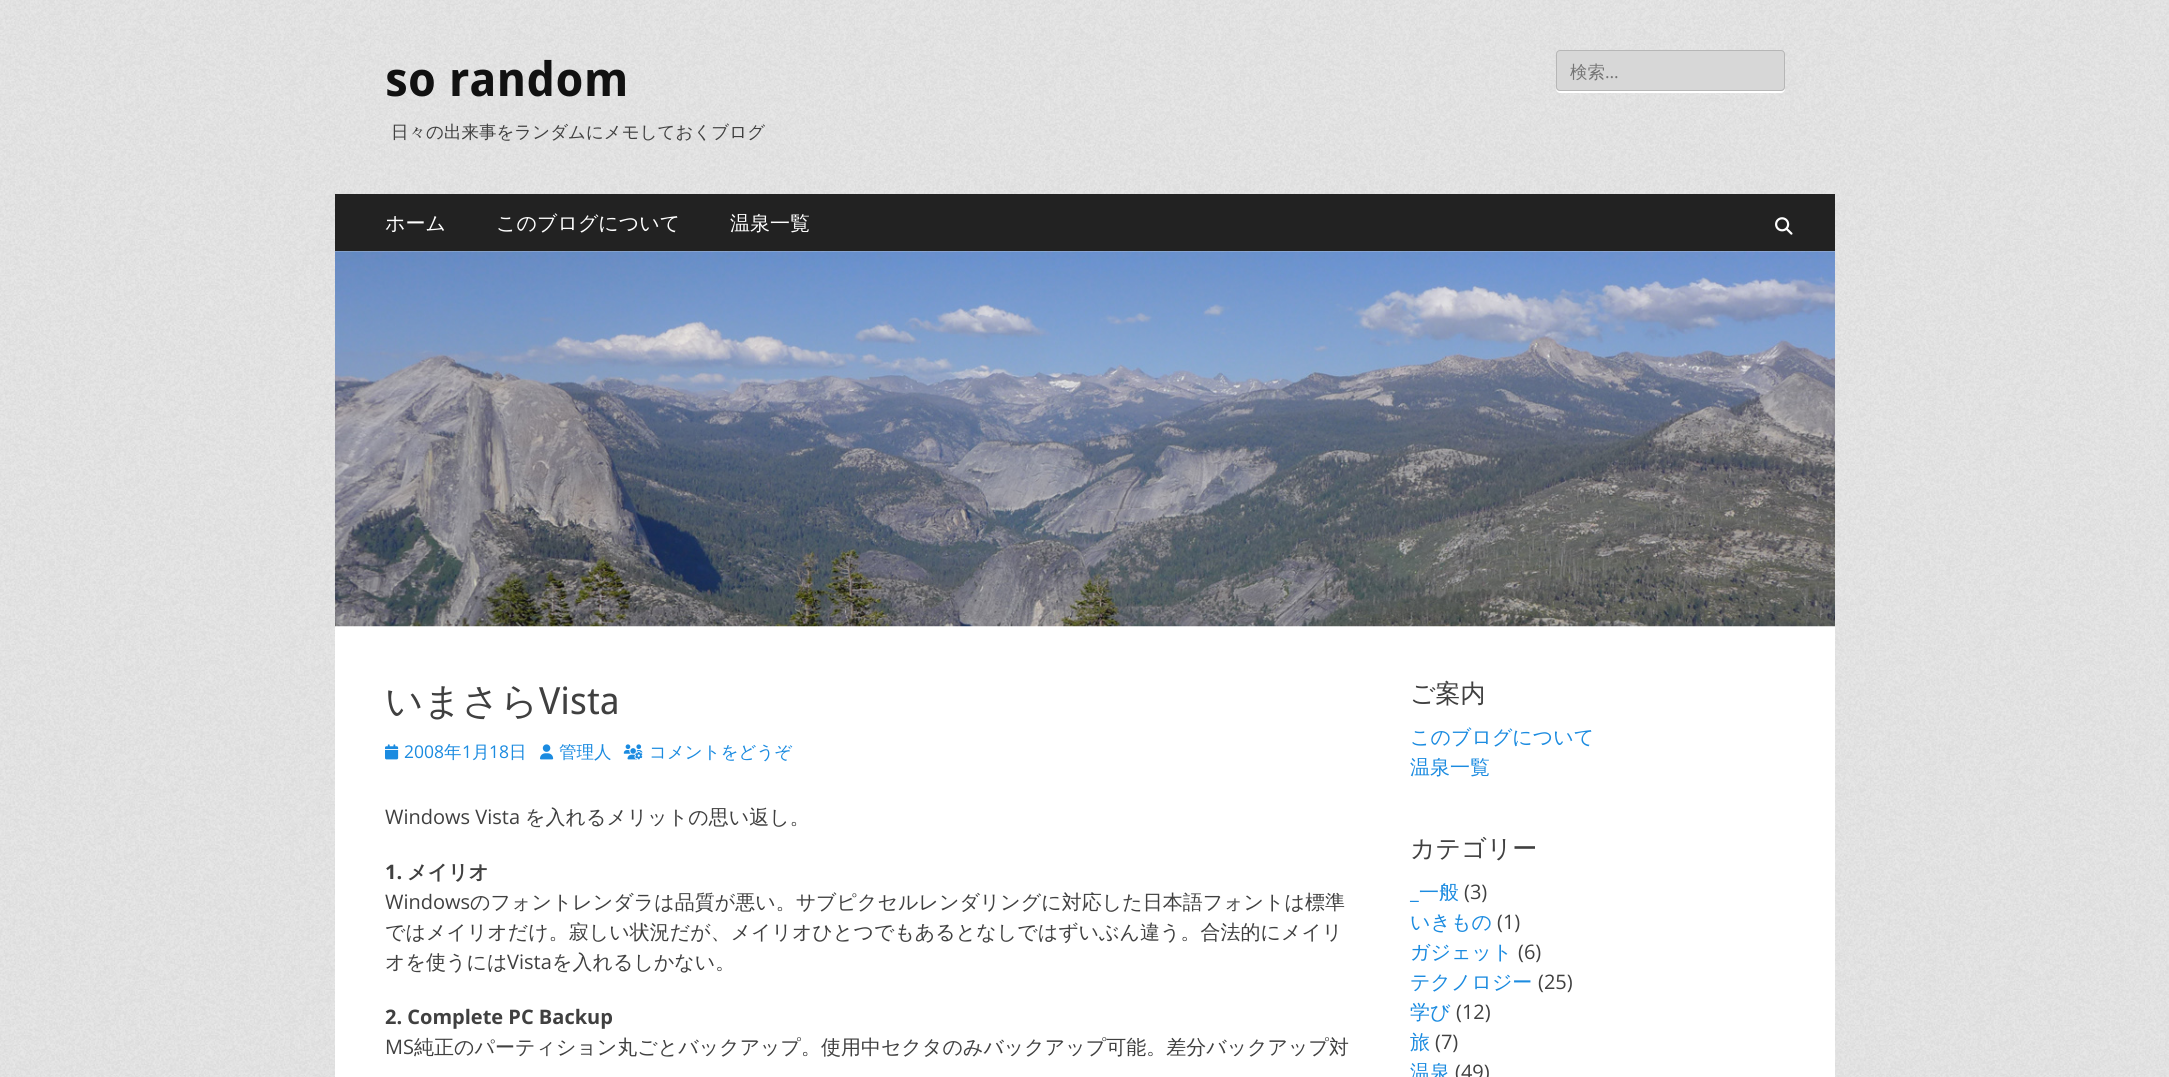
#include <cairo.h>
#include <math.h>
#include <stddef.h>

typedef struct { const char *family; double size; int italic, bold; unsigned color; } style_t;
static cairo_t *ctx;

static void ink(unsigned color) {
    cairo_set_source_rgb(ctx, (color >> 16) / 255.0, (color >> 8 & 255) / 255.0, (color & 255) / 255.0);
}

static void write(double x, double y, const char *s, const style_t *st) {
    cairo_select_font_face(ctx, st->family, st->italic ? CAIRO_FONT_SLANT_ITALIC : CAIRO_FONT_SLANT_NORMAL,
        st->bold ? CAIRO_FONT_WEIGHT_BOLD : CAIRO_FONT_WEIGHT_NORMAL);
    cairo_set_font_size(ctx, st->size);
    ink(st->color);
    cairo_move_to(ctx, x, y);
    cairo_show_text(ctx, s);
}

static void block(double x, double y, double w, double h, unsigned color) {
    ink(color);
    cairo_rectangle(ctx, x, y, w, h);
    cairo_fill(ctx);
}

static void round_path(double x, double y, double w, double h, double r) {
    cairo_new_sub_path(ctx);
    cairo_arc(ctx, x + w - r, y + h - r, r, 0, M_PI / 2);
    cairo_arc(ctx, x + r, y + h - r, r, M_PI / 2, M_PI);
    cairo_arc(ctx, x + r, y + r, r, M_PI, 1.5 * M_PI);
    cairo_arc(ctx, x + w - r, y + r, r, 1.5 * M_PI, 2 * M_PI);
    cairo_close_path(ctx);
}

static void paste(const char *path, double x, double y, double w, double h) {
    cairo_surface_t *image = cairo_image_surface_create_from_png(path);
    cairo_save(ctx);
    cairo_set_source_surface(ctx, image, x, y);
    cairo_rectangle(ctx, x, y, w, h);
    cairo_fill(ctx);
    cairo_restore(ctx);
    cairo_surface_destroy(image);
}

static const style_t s1 = {"Droid Sans", 47.5, 0, 1, 0x111111};
static const style_t s2 = {"WenQuanYi Zen Hei Medium", 17.5, 0, 0, 0x404040};
static const style_t s3 = {"WenQuanYi Zen Hei Medium", 17.5, 0, 0, 0x757575};
static const style_t s4 = {"Open Sans", 17.5, 0, 0, 0x757575};
static const style_t s5 = {"WenQuanYi Zen Hei Medium", 20, 0, 0, 0xffffff};
static const style_t s6 = {"WenQuanYi Zen Hei Medium", 37.5, 0, 0, 0x404040};
static const style_t s7 = {"Droid Sans", 37.5, 0, 0, 0x404040};
static const style_t s8 = {"Open Sans", 17.5, 0, 0, 0x1b8be0};
static const style_t s9 = {"WenQuanYi Zen Hei Medium", 17.5, 0, 0, 0x1b8be0};
static const style_t s10 = {"Open Sans", 20, 0, 0, 0x404040};
static const style_t s11 = {"WenQuanYi Zen Hei Medium", 20, 0, 0, 0x404040};
static const style_t s12 = {"Open Sans", 20, 0, 1, 0x404040};
static const style_t s13 = {"WenQuanYi Zen Hei", 20, 0, 1, 0x404040};
static const style_t s14 = {"WenQuanYi Zen Hei Medium", 25, 0, 0, 0x404040};
static const style_t s15 = {"WenQuanYi Zen Hei Medium", 20, 0, 0, 0x1b8be0};
static const style_t s16 = {"Open Sans", 20, 0, 0, 0x1b8be0};

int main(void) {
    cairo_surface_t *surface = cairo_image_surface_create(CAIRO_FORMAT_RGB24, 2169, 1077);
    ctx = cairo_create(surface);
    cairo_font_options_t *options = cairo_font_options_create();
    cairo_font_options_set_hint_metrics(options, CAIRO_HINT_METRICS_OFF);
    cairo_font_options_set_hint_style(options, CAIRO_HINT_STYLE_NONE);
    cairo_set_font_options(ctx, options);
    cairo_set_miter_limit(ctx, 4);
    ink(0xffffff);
    cairo_paint(ctx);
    paste("pic1.png", 0, 0, 2169, 1077);
    write(385, 96, "so random", &s1);
    write(391, 138, "日々の出来事をランダムにメモしておくブログ", &s2);
    ink(0xffffff);
    cairo_new_path(ctx);
    cairo_move_to(ctx, 1556, 54);
    cairo_line_to(ctx, 1556, 89);
    cairo_curve_to(ctx, 1556, 91, 1558, 93, 1560, 93);
    cairo_line_to(ctx, 1781, 93);
    cairo_curve_to(ctx, 1783, 93, 1785, 91, 1785, 89);
    cairo_line_to(ctx, 1785, 88);
    cairo_curve_to(ctx, 1785, 90, 1783, 91, 1781, 91);
    cairo_line_to(ctx, 1560, 91);
    cairo_curve_to(ctx, 1558, 91, 1556, 90, 1556, 88);
    cairo_close_path(ctx);
    cairo_fill(ctx);
    ink(0xd7d7d7);
    round_path(1556.5, 50.5, 228, 40, 3.5);
    cairo_fill_preserve(ctx);
    ink(0xb6b6b6);
    cairo_set_line_width(ctx, 1);
    cairo_stroke(ctx);
    write(1570, 78, "検索", &s3);
    write(1605, 78, "…", &s4);
    block(335, 194, 1500, 57, 0x222222);
    write(385, 230, "ホーム", &s5);
    write(496, 230, "このブログについて", &s5);
    write(730, 230, "温泉一覧", &s5);
    paste("pic2.png", 1775, 217, 18, 18);
    block(335, 626, 1500, 451, 0xffffff);
    paste("pic3.png", 335, 251, 1500, 376);
    write(385, 714, "いまさら", &s6);
    write(539, 714, "Vista", &s7);
    paste("pic4.png", 385, 744, 14, 16);
    write(404, 758, "2008", &s8);
    write(444, 758, "年", &s9);
    write(462, 758, "1", &s8);
    write(472, 758, "月", &s9);
    write(489, 758, "18", &s8);
    write(509, 758, "日", &s9);
    paste("pic5.png", 540, 744, 14, 16);
    write(559, 758, "管理人", &s9);
    paste("pic6.png", 623, 744, 20, 16);
    write(649, 758, "コメントをどうぞ", &s9);
    write(385, 824, "Windows Vista", &s10);
    write(525, 824, "を入れるメリットの思い返し。", &s11);
    write(385, 879, "1.", &s12);
    write(407, 879, "メイリオ", &s13);
    write(385, 909, "Windows", &s10);
    write(470, 909, "のフォントレンダラは品質が悪い。サブピクセルレンダリングに対応した日本語フォントは標準", &s11);
    write(385, 939, "ではメイリオだけ。寂しい状況だが、メイリオひとつでもあるとなしではずいぶん違う。合法的にメイリ", &s11);
    write(385, 969, "オを使うには", &s11);
    write(507, 969, "Vista", &s10);
    write(552, 969, "を入れるしかない。", &s11);
    write(385, 1024, "2. Complete PC Backup", &s12);
    write(385, 1054, "MS", &s10);
    write(414, 1054, "純正のパーティション丸ごとバックアップ。使用中セクタのみバックアップ可能。差分バックアップ対", &s11);
    write(1410, 702, "ご案内", &s14);
    write(1410, 744, "このブログについて", &s15);
    write(1410, 774, "温泉一覧", &s15);
    write(1410, 857, "カテゴリー", &s14);
    write(1410, 899, "_", &s16);
    write(1419, 899, "一般", &s15);
    write(1464, 899, "(3)", &s10);
    write(1410, 929, "いきもの", &s15);
    write(1497, 929, "(1)", &s10);
    write(1410, 959, "ガジェット", &s15);
    write(1518, 959, "(6)", &s10);
    write(1410, 989, "テクノロジー", &s15);
    write(1538, 989, "(25)", &s10);
    write(1410, 1019, "学び", &s15);
    write(1456, 1019, "(12)", &s10);
    write(1410, 1049, "旅", &s15);
    write(1435, 1049, "(7)", &s10);
    write(1410, 1079, "温泉", &s15);
    write(1455, 1079, "(49)", &s10);
    cairo_surface_write_to_png(surface, "screenshot.png");
    cairo_font_options_destroy(options);
    cairo_destroy(ctx);
    cairo_surface_destroy(surface);
    return 0;
}
